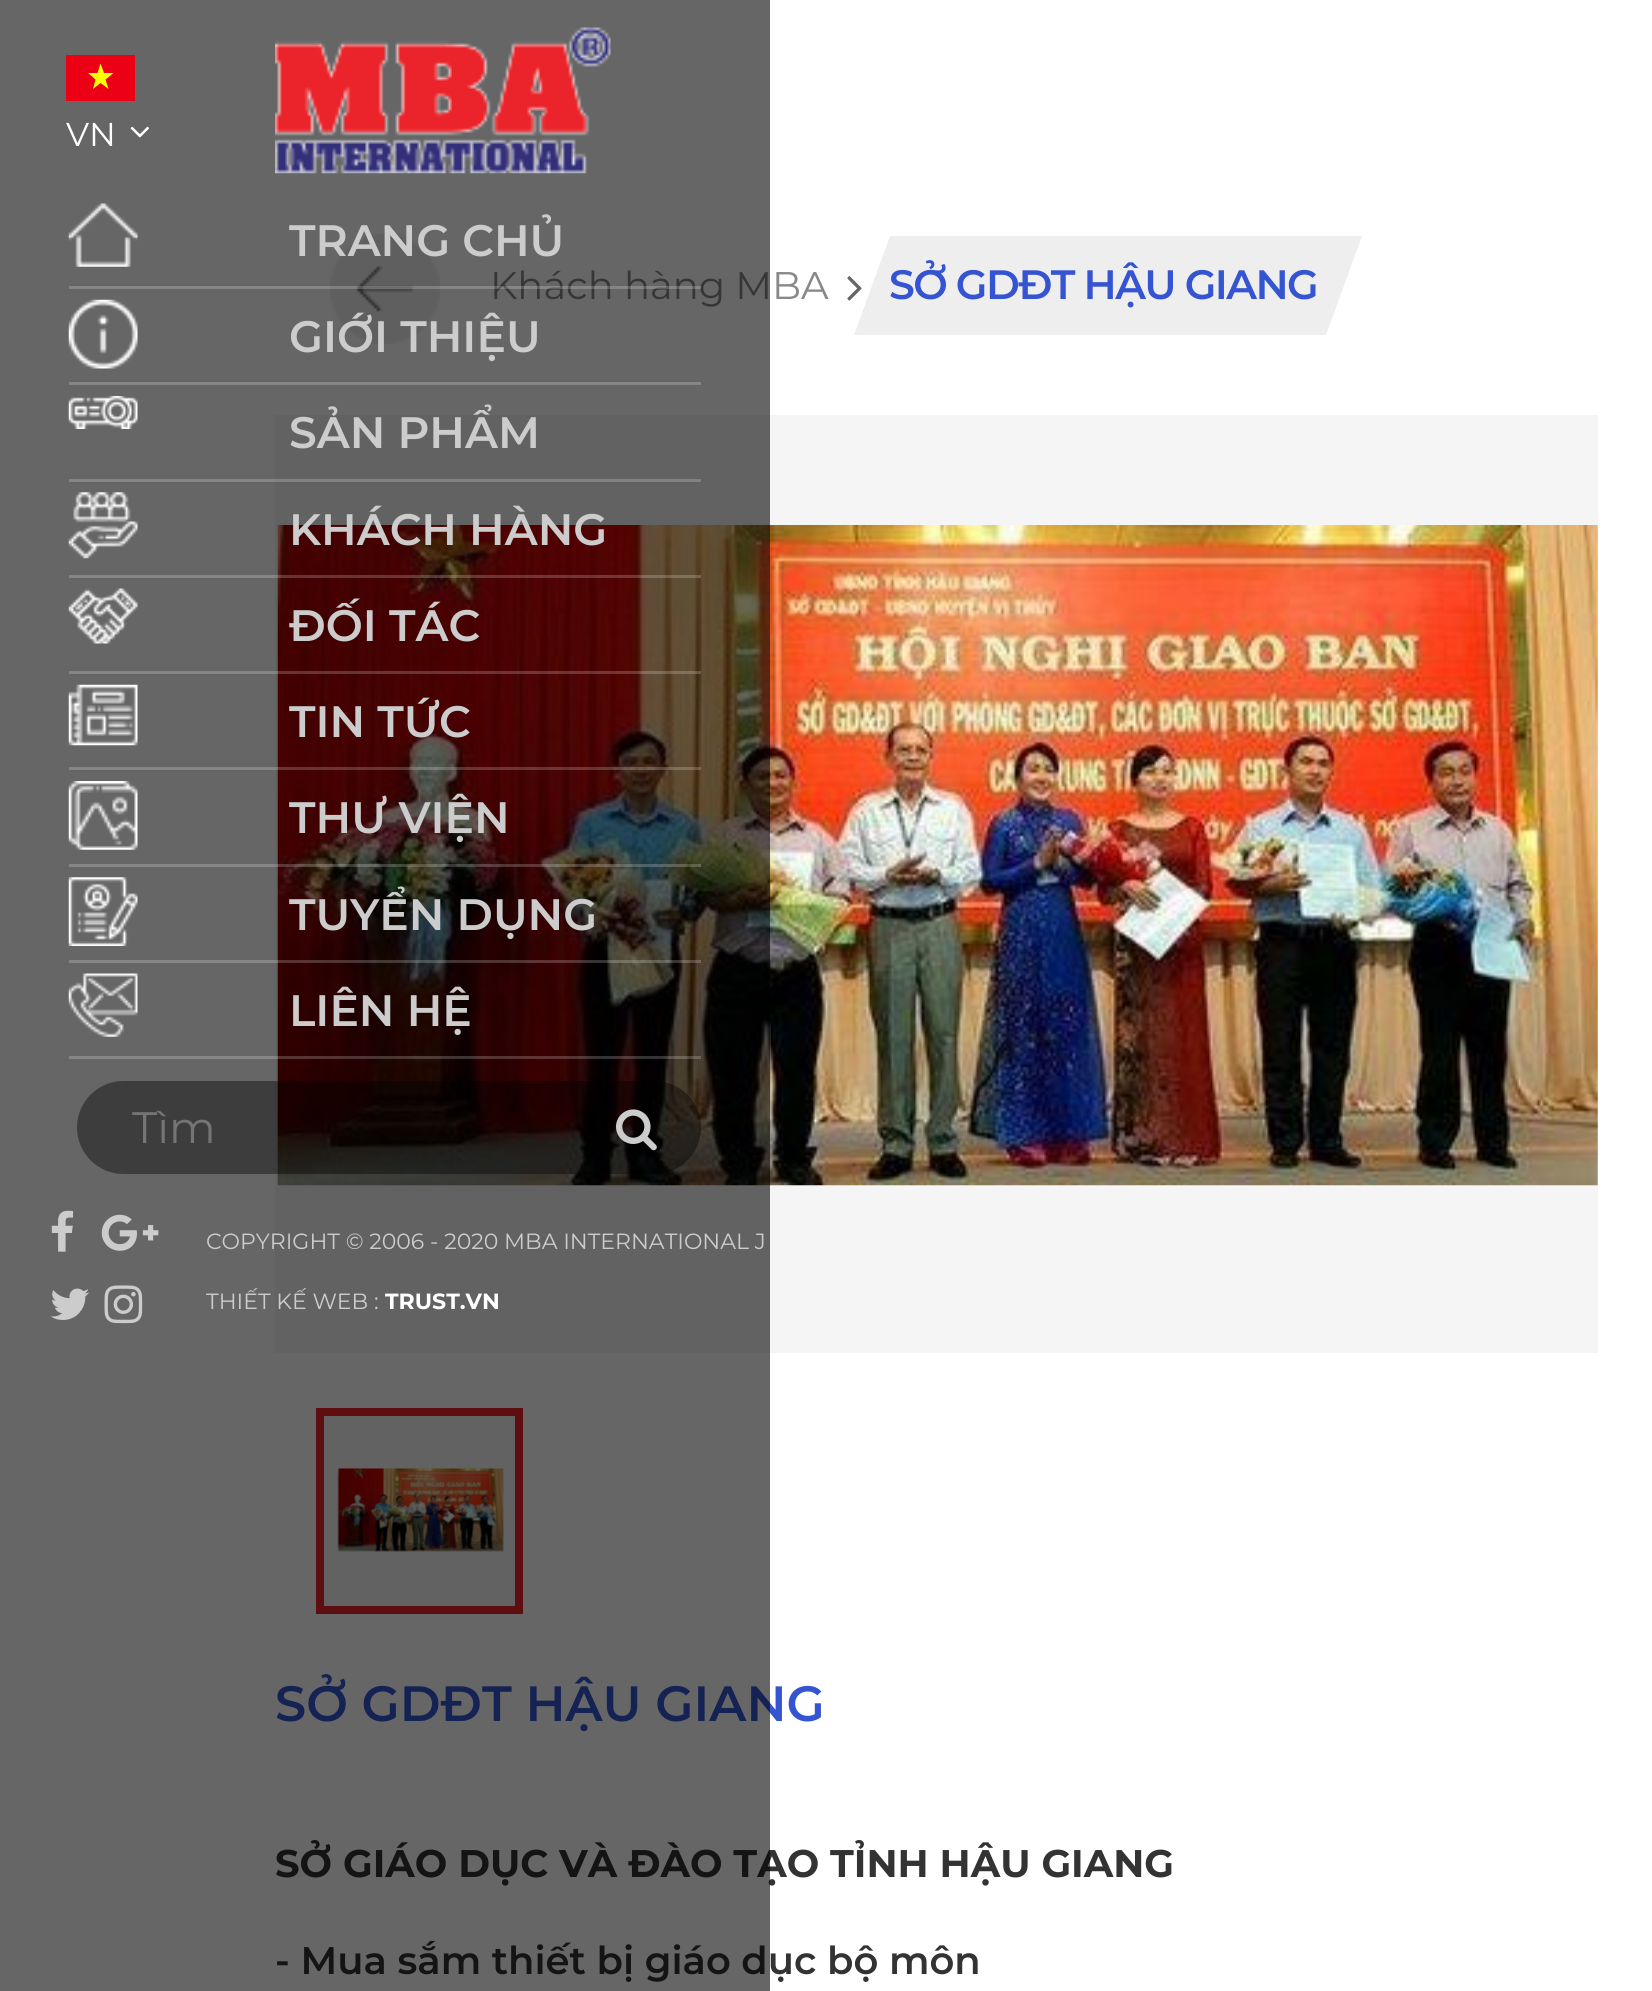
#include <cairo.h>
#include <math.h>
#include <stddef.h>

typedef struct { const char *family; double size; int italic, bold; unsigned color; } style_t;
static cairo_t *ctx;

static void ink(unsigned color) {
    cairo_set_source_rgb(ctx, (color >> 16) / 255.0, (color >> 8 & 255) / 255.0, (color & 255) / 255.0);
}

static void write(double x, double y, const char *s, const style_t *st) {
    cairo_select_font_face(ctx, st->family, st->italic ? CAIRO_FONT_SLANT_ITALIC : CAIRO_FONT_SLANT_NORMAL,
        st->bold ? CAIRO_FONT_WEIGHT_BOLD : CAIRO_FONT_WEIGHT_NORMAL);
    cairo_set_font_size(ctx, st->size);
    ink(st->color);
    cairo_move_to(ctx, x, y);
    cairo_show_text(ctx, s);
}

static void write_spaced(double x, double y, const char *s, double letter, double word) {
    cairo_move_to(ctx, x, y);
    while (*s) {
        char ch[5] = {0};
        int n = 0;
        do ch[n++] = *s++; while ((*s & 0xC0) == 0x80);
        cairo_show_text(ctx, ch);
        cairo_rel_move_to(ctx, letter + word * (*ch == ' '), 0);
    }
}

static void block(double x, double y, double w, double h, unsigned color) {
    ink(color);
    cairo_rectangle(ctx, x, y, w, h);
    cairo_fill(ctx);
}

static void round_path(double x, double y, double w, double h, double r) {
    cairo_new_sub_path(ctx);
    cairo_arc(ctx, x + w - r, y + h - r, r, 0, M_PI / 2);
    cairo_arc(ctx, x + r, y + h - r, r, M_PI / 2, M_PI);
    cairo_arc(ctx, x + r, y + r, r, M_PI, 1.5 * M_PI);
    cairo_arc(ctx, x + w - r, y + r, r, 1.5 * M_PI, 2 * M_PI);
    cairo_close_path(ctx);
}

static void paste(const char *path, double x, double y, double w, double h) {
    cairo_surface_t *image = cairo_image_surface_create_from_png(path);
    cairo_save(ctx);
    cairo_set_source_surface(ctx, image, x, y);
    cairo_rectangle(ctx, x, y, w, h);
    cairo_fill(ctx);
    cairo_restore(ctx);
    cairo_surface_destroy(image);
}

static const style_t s1 = {"Montserrat", 38.5, 0, 0, 0x888888};
static const style_t s2 = {"Montserrat SemiBold", 49.5, 0, 0, 0x3454d1};
static const style_t s3 = {"Montserrat", 38.5, 0, 1, 0x333333};
static const style_t s4 = {"Montserrat SemiBold", 38.5, 0, 0, 0x333333};
static const style_t s5 = {"Montserrat", 33, 0, 0, 0xffffff};
static const style_t s6 = {"Montserrat SemiBold", 44, 0, 0, 0xcccccc};
static const style_t s7 = {"Montserrat", 44, 0, 0, 0x757575};
static const style_t s8 = {"Montserrat", 22, 0, 0, 0xcccccc};
static const style_t s9 = {"Montserrat", 22, 0, 1, 0xffffff};

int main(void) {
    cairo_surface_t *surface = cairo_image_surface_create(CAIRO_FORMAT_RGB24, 1652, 1991);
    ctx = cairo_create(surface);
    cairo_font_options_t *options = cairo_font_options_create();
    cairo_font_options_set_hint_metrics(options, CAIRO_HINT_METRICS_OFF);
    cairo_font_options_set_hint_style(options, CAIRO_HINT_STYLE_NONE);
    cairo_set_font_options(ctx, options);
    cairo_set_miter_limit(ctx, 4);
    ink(0xffffff);
    cairo_paint(ctx);
    paste("pic17.png", 330, 233, 110, 111);
    write(490, 299, "Khách hàng MBA", &s1);
    block(275, 415, 1323, 938, 0xf5f5f5);
    paste("pic19.png", 277, 525, 1321, 661);
    block(324, 1416, 191, 190, 0xf5f5f5);
    paste("pic20.png", 337, 1468, 167, 84);
    cairo_rectangle(ctx, 320, 1412, 199, 198);
    ink(0xeb232b);
    cairo_set_line_width(ctx, 8);
    cairo_stroke(ctx);
    write(275, 1721, "SỞ GDĐT HẬU GIANG", &s2);
    write(275, 1877, "SỞ GIÁO DỤC VÀ ĐÀO TẠO TỈNH HẬU GIANG", &s3);
    write(275, 1974, "- Mua sắm thiết bị giáo dục bộ môn", &s4);
    cairo_set_source_rgba(ctx, 0, 0, 0, 0.6);
    cairo_rectangle(ctx, 0, 0, 770, 1991);
    cairo_fill(ctx);
    paste("pic1.png", 275, 27, 336, 147);
    block(66, 55, 69, 46, 0xec0015);
    ink(0xffff00);
    cairo_new_path(ctx);
    cairo_move_to(ctx, 108.5, 89);
    cairo_line_to(ctx, 100.5, 83);
    cairo_line_to(ctx, 93, 89);
    cairo_line_to(ctx, 95.5, 79.5);
    cairo_line_to(ctx, 88, 73);
    cairo_line_to(ctx, 97.5, 73);
    cairo_line_to(ctx, 100.5, 63.5);
    cairo_line_to(ctx, 104, 73);
    cairo_line_to(ctx, 113.5, 73);
    cairo_line_to(ctx, 105.5, 79.5);
    cairo_close_path(ctx);
    cairo_fill(ctx);
    write(66, 146, "VN", &s5);
    paste("pic2.png", 130, 126, 19, 12);
    paste("pic3.png", 68, 203, 70, 64);
    write(289, 256, "TRANG CHỦ", &s6);
    cairo_set_source_rgba(ctx, 1, 1, 1, 0.2);
    cairo_rectangle(ctx, 69, 286, 632, 3);
    cairo_fill(ctx);
    paste("pic4.png", 68, 299, 70, 70);
    write(289, 352, "GIỚI THIỆU", &s6);
    block(69, 382, 632, 3, 0x858585);
    paste("pic5.png", 68, 396, 70, 33);
    write(289, 448, "SẢN PHẨM", &s6);
    cairo_set_source_rgba(ctx, 1, 1, 1, 0.2);
    cairo_rectangle(ctx, 69, 479, 632, 3);
    cairo_fill(ctx);
    paste("pic6.png", 68, 492, 70, 67);
    write(289, 545, "KHÁCH HÀNG", &s6);
    cairo_set_source_rgba(ctx, 1, 1, 1, 0.2);
    cairo_rectangle(ctx, 69, 575, 632, 3);
    cairo_fill(ctx);
    paste("pic7.png", 68, 588, 70, 56);
    write(289, 641, "ĐỐI TÁC", &s6);
    cairo_set_source_rgba(ctx, 1, 1, 1, 0.2);
    cairo_rectangle(ctx, 69, 671, 632, 3);
    cairo_fill(ctx);
    paste("pic8.png", 68, 684, 70, 62);
    write(289, 737, "TIN TỨC", &s6);
    cairo_set_source_rgba(ctx, 1, 1, 1, 0.2);
    cairo_rectangle(ctx, 69, 767, 632, 3);
    cairo_fill(ctx);
    paste("pic9.png", 68, 781, 70, 69);
    write(289, 833, "THƯ VIỆN", &s6);
    cairo_set_source_rgba(ctx, 1, 1, 1, 0.2);
    cairo_rectangle(ctx, 69, 864, 632, 3);
    cairo_fill(ctx);
    paste("pic10.png", 68, 877, 70, 69);
    write(289, 930, "TUYỂN DỤNG", &s6);
    cairo_set_source_rgba(ctx, 1, 1, 1, 0.2);
    cairo_rectangle(ctx, 69, 960, 632, 3);
    cairo_fill(ctx);
    paste("pic11.png", 68, 973, 70, 64);
    write(289, 1026, "LIÊN HỆ", &s6);
    cairo_set_source_rgba(ctx, 1, 1, 1, 0.2);
    cairo_rectangle(ctx, 69, 1056, 632, 3);
    cairo_fill(ctx);
    cairo_set_source_rgba(ctx, 0, 0, 0, 0.4);
    round_path(77, 1081, 624, 93, 46.5);
    cairo_fill(ctx);
    write(132, 1143, "Tìm", &s7);
    paste("pic12.png", 616, 1109, 41, 42);
    paste("pic13.png", 51, 1210, 23, 42);
    paste("pic14.png", 101, 1214, 58, 37);
    paste("pic15.png", 50, 1288, 39, 32);
    paste("pic16.png", 104, 1285, 39, 39);
    write(206, 1249, "COPYRIGHT © 2006 - 2020 MBA INTERNATIONAL J", &s8);
    write(206, 1309, "THIẾT KẾ WEB :", &s8);
    write(385, 1309, "TRUST.VN", &s9);
    paste("pic18.png", 847, 276, 15, 25);
    ink(0xeeeeee);
    cairo_new_path(ctx);
    cairo_move_to(ctx, 890, 236);
    cairo_line_to(ctx, 1362, 236);
    cairo_line_to(ctx, 1326, 335);
    cairo_line_to(ctx, 854, 335);
    cairo_close_path(ctx);
    cairo_fill(ctx);
    cairo_select_font_face(ctx, "Montserrat SemiBold", CAIRO_FONT_SLANT_NORMAL, CAIRO_FONT_WEIGHT_NORMAL);
    cairo_set_font_size(ctx, 41);
    ink(0x3454d1);
    write_spaced(889, 299, "SỞ GDĐT HẬU GIANG", -1.6, 0);
    cairo_surface_write_to_png(surface, "screenshot.png");
    cairo_font_options_destroy(options);
    cairo_destroy(ctx);
    cairo_surface_destroy(surface);
    return 0;
}
